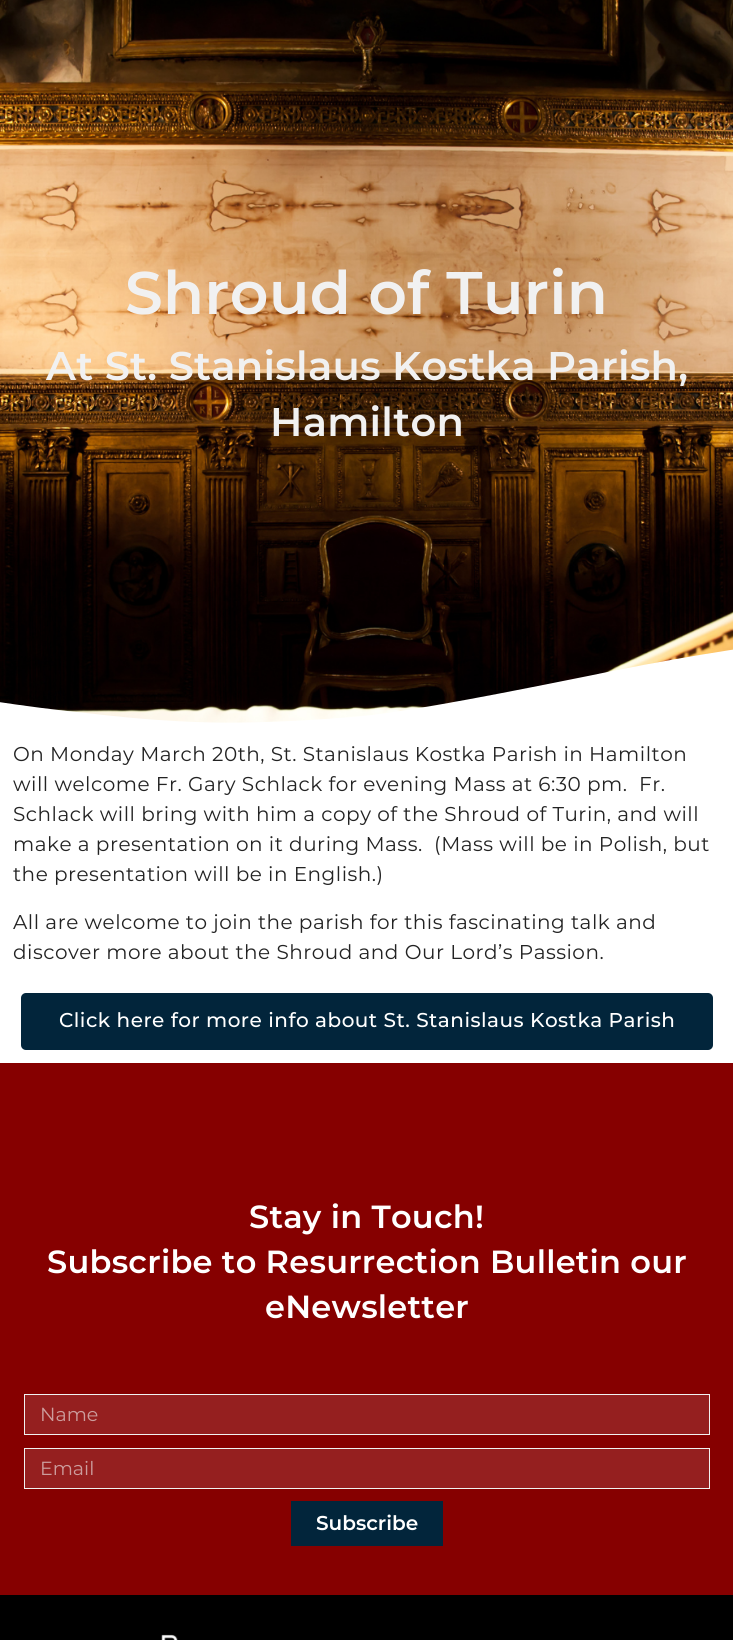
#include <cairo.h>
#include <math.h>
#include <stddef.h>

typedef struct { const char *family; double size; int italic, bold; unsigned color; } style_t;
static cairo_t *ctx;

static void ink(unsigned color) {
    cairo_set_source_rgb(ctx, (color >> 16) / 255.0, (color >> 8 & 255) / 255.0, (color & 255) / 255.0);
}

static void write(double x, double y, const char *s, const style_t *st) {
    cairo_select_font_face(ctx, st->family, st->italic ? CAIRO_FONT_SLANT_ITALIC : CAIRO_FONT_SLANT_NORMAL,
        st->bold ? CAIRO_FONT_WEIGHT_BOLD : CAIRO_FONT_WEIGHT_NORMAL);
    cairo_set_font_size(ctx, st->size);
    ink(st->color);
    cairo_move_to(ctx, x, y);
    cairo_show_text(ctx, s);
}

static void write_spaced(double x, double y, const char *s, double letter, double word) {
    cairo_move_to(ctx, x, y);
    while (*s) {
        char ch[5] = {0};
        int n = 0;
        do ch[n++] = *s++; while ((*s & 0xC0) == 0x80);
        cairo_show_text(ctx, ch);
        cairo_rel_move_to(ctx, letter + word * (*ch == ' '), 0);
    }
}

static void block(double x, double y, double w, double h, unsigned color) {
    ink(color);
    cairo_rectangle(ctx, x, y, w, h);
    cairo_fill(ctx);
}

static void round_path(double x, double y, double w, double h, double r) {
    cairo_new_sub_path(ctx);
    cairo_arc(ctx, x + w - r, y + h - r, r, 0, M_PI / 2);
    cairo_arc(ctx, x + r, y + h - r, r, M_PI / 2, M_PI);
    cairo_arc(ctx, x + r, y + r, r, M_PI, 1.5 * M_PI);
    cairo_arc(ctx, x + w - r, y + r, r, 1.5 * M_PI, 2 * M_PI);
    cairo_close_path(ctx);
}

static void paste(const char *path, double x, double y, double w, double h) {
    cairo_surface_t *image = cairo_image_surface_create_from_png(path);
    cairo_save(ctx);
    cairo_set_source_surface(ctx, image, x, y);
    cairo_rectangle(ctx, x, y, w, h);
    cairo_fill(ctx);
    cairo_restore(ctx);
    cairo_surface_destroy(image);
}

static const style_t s1 = {"Montserrat", 19, 0, 0, 0xcc9d9d};
static const style_t s2 = {"Montserrat SemiBold", 20, 0, 0, 0xffffff};

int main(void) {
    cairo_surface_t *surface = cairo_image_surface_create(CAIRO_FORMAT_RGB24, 733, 1640);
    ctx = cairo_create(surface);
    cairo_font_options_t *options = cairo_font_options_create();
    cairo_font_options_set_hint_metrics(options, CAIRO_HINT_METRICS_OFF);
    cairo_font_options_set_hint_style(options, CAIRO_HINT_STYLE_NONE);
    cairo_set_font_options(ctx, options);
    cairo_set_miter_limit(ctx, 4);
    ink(0xffffff);
    cairo_paint(ctx);
    paste("pic1.png", 0, 0, 733, 723);
    cairo_select_font_face(ctx, "Montserrat SemiBold", CAIRO_FONT_SLANT_NORMAL, CAIRO_FONT_WEIGHT_NORMAL);
    cairo_set_font_size(ctx, 60);
    ink(0xf1f1f1);
    write_spaced(125, 314, "Shroud of Turin", 0.25, 0);
    cairo_set_font_size(ctx, 40);
    write_spaced(46, 380, "At St. Stanislaus Kostka Parish,", 0.25, 0);
    write_spaced(270, 436, "Hamilton", 0.25, 0);
    ink(0xffffff);
    cairo_new_path(ctx);
    cairo_move_to(ctx, 195, 722);
    cairo_curve_to(ctx, 245, 724, 309, 721, 362, 716);
    cairo_curve_to(ctx, 414, 711, 518, 690, 583, 677);
    cairo_curve_to(ctx, 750, 642, 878, 629, 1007, 623);
    cairo_curve_to(ctx, 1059, 621, 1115, 619, 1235, 626);
    cairo_curve_to(ctx, 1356, 632, 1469, 654, 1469, 654);
    cairo_line_to(ctx, 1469, 729);
    cairo_line_to(ctx, -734, 729);
    cairo_line_to(ctx, -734, 696);
    cairo_curve_to(ctx, -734, 696, -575, 660, -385, 663);
    cairo_curve_to(ctx, -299, 663, -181, 670, -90, 687);
    cairo_curve_to(ctx, -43, 696, 25, 707, 86, 713);
    cairo_curve_to(ctx, 146, 720, 173, 721, 195, 722);
    cairo_close_path(ctx);
    cairo_fill(ctx);
    cairo_select_font_face(ctx, "Montserrat", CAIRO_FONT_SLANT_NORMAL, CAIRO_FONT_WEIGHT_NORMAL);
    cairo_set_font_size(ctx, 20);
    ink(0x232323);
    write_spaced(13, 761, "On Monday March 20th, St. Stanislaus Kostka Parish in Hamilton", 0.5, 0);
    write_spaced(13, 791, "will welcome Fr. Gary Schlack for evening Mass at 6:30 pm.  Fr.", 0.5, 0);
    write_spaced(13, 821, "Schlack will bring with him a copy of the Shroud of Turin, and will", 0.5, 0);
    write_spaced(13, 851, "make a presentation on it during Mass.  (Mass will be in Polish, but", 0.5, 0);
    write_spaced(13, 881, "the presentation will be in English.)", 0.5, 0);
    write_spaced(13, 929, "All are welcome to join the parish for this fascinating talk and", 0.5, 0);
    write_spaced(13, 959, "discover more about the Shroud and Our Lord’s Passion.", 0.5, 0);
    ink(0x02253b);
    round_path(21, 993, 692, 57, 5);
    cairo_fill(ctx);
    cairo_select_font_face(ctx, "Montserrat Medium", CAIRO_FONT_SLANT_NORMAL, CAIRO_FONT_WEIGHT_NORMAL);
    ink(0xffffff);
    write_spaced(59, 1027, "Click here for more info about St. Stanislaus Kostka Parish", 0.5, 0);
    block(0, 1063, 733, 532, 0x860000);
    cairo_select_font_face(ctx, "Montserrat SemiBold", CAIRO_FONT_SLANT_NORMAL, CAIRO_FONT_WEIGHT_NORMAL);
    cairo_set_font_size(ctx, 32);
    ink(0xffffff);
    write_spaced(249, 1228, "Stay in Touch!", 0.25, 0);
    write_spaced(47, 1273, "Subscribe to Resurrection Bulletin our", 0.25, 0);
    write_spaced(265, 1318, "eNewsletter", 0.25, 0);
    ink(0x951f1f);
    cairo_rectangle(ctx, 24.5, 1394.5, 685, 40);
    cairo_fill_preserve(ctx);
    ink(0xf1f1f1);
    cairo_set_line_width(ctx, 1);
    cairo_stroke(ctx);
    write(40, 1421, "Name", &s1);
    ink(0x951f1f);
    cairo_rectangle(ctx, 24.5, 1448.5, 685, 40);
    cairo_fill_preserve(ctx);
    ink(0xf1f1f1);
    cairo_stroke(ctx);
    write(40, 1475, "Email", &s1);
    block(291, 1501, 152, 45, 0x02253b);
    write(316, 1530, "Subscribe", &s2);
    block(0, 1595, 733, 45, 0x000000);
    paste("pic2.png", 161, 1634, 17, 6);
    cairo_surface_write_to_png(surface, "screenshot.png");
    cairo_font_options_destroy(options);
    cairo_destroy(ctx);
    cairo_surface_destroy(surface);
    return 0;
}
